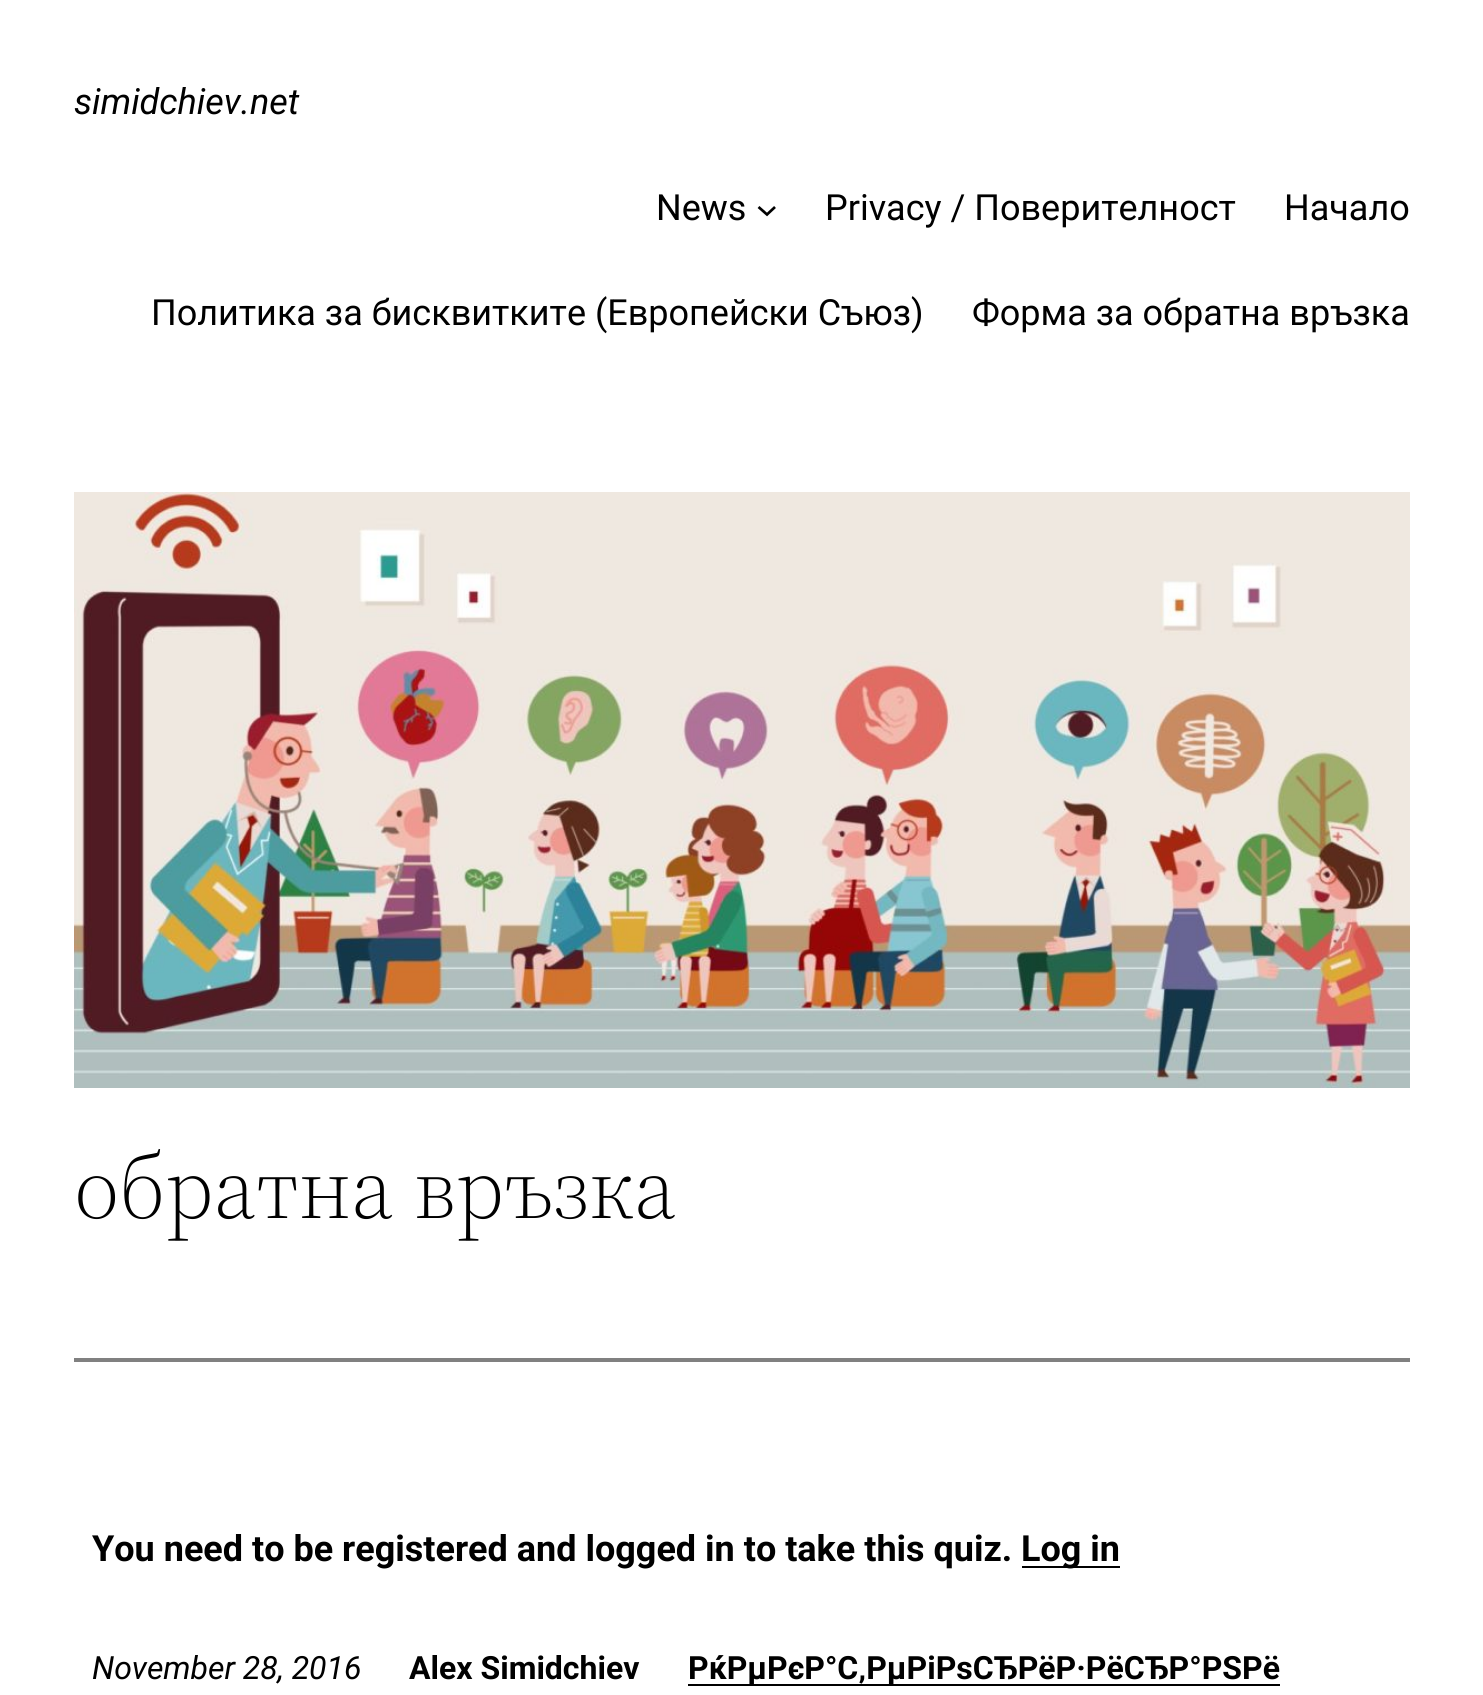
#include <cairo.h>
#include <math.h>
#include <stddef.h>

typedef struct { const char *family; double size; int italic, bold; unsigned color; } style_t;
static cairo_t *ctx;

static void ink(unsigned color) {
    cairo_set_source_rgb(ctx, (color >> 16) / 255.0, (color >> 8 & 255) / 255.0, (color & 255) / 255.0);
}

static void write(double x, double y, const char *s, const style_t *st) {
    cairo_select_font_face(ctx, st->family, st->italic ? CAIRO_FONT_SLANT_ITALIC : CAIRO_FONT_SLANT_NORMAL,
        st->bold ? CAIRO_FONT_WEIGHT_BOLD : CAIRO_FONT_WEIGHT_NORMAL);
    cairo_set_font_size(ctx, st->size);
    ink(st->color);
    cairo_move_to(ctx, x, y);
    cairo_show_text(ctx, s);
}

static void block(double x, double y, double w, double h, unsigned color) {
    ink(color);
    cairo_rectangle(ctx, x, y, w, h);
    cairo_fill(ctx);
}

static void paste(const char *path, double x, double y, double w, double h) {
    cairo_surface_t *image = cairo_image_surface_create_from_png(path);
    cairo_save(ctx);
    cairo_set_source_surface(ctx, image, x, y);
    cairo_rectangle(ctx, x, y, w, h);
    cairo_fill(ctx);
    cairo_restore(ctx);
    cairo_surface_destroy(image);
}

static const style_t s1 = {"Roboto", 36, 1, 0, 0x000000};
static const style_t s2 = {"Roboto", 36, 0, 0, 0x000000};
static const style_t s3 = {"Source Serif 4 Light", 89, 0, 0, 0x000000};
static const style_t s4 = {"Roboto", 36, 0, 1, 0x000000};
static const style_t s5 = {"Roboto", 32, 1, 0, 0x000000};
static const style_t s6 = {"Roboto", 32, 0, 1, 0x000000};

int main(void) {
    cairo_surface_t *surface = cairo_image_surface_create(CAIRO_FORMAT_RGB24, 1483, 1695);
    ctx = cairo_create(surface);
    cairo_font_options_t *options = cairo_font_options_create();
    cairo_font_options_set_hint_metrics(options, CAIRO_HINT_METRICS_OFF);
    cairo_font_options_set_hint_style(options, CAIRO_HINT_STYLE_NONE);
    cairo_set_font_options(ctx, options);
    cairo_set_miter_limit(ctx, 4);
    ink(0xffffff);
    cairo_paint(ctx);
    write(74, 114, "simidchiev.net", &s1);
    write(656, 220, "News", &s2);
    cairo_new_path(ctx);
    cairo_move_to(ctx, 758.5, 207);
    cairo_line_to(ctx, 767, 214.5);
    cairo_line_to(ctx, 775, 207);
    cairo_set_line_width(ctx, 2.7);
    cairo_stroke(ctx);
    write(825, 220, "Privacy / Поверителност", &s2);
    write(1284, 220, "Начало", &s2);
    write(151, 325, "Политика за бисквитките (Европейски Съюз)", &s2);
    write(972, 325, "Форма за обратна връзка", &s2);
    paste("pic1.png", 74, 492, 1336, 596);
    write(74, 1218, "обратна връзка", &s3);
    block(74, 1358, 1336, 4, 0x808080);
    write(92, 1561, "You need to be registered and logged in to take this quiz.", &s4);
    block(1022, 1566, 98, 2, 0x000000);
    write(1021, 1561, "Log in", &s4);
    write(92, 1679, "November 28, 2016", &s5);
    write(409, 1679, "Alex Simidchiev", &s6);
    block(688, 1684, 592, 2, 0x000000);
    write(688, 1679, "РќРµРєР°С‚РµРіРѕСЂРёР·РёСЂР°РЅРё", &s6);
    cairo_surface_write_to_png(surface, "screenshot.png");
    cairo_font_options_destroy(options);
    cairo_destroy(ctx);
    cairo_surface_destroy(surface);
    return 0;
}
